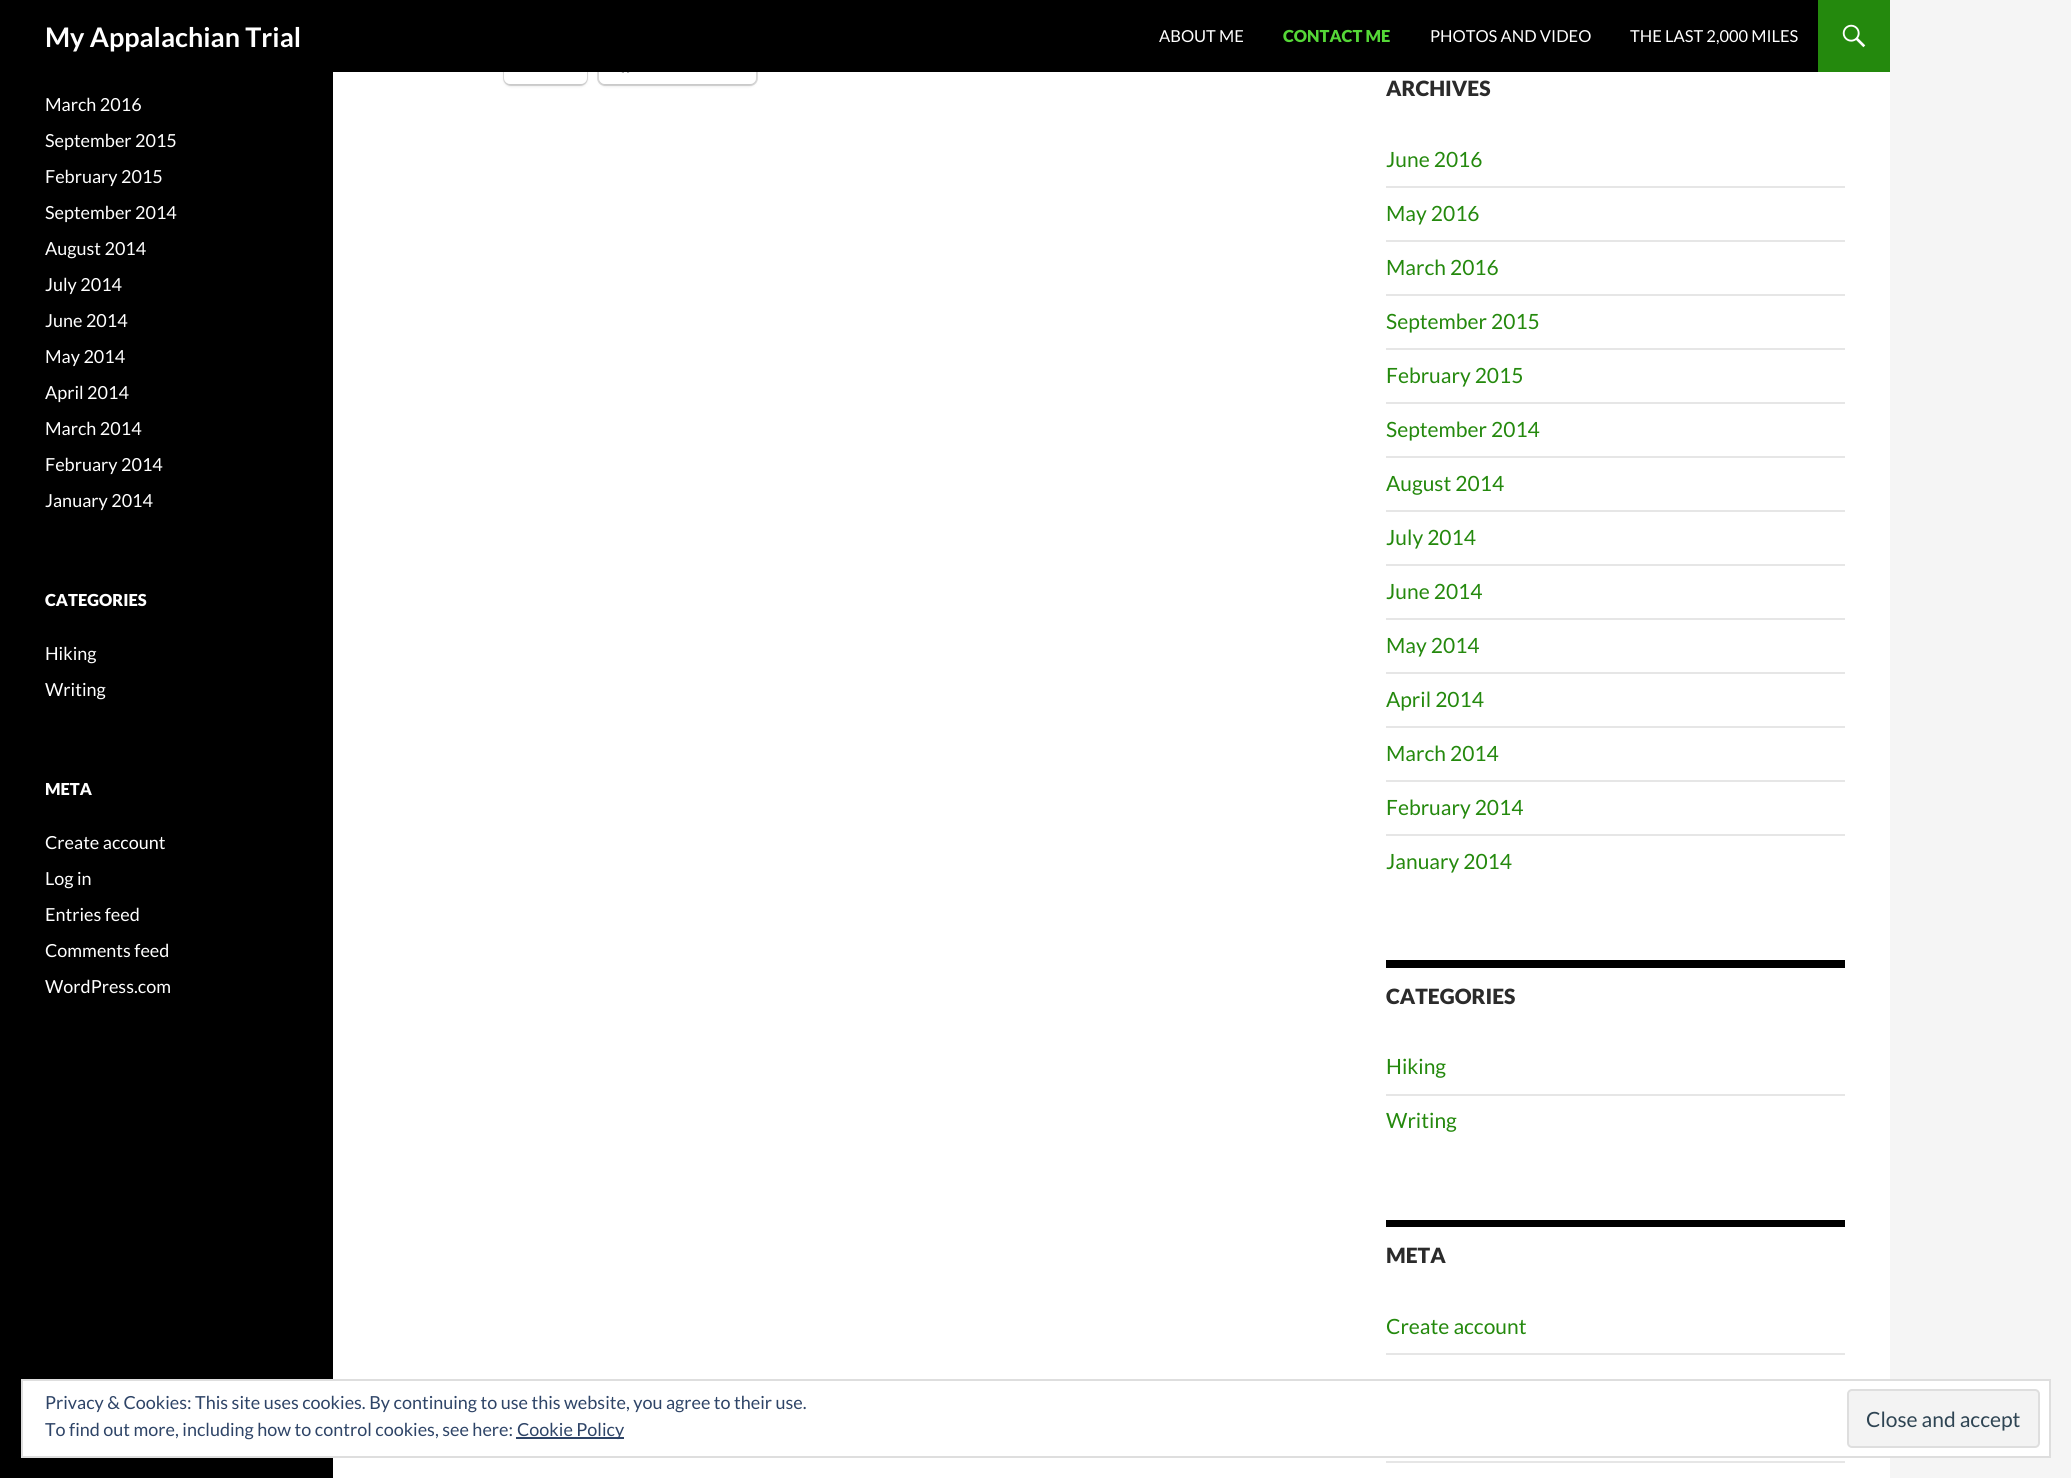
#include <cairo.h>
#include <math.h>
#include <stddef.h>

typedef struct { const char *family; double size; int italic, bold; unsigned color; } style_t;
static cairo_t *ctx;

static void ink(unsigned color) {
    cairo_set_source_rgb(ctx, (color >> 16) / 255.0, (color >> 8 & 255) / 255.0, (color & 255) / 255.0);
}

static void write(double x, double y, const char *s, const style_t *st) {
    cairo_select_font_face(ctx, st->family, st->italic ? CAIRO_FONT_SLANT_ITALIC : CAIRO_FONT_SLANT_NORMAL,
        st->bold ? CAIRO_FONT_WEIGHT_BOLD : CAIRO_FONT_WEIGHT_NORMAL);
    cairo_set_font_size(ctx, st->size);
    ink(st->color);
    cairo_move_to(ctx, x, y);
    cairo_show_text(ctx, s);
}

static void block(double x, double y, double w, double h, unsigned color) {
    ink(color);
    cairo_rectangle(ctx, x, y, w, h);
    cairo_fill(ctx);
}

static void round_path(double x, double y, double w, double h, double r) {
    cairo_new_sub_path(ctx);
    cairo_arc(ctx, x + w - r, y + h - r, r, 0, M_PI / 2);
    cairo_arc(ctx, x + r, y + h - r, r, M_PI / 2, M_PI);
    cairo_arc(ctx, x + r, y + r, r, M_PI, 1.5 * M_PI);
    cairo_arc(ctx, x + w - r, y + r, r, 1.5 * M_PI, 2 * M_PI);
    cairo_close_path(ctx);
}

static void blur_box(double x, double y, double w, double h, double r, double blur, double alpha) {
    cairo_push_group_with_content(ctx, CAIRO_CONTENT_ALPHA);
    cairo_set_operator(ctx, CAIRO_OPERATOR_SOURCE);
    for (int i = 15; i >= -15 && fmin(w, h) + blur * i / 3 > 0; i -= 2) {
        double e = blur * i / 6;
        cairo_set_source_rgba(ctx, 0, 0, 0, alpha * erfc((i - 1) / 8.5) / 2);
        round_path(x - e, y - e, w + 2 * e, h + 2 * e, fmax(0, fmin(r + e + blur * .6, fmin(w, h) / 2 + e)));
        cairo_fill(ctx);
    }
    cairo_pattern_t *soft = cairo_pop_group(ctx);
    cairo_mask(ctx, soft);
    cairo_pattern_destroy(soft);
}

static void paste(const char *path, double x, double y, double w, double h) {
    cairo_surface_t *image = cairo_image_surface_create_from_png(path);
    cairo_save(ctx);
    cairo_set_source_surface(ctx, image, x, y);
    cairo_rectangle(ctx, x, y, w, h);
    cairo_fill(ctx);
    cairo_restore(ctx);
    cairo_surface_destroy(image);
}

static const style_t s1 = {"Lato", 27, 0, 1, 0xffffff};
static const style_t s2 = {"Lato", 16.5, 0, 0, 0xffffff};
static const style_t s3 = {"Lato Black", 16.5, 0, 0, 0x55d737};
static const style_t s4 = {"Lato", 18, 0, 0, 0xffffff};
static const style_t s5 = {"Lato Black", 16.5, 0, 0, 0xffffff};
static const style_t s6 = {"Lato Black", 21, 0, 0, 0x2b2b2b};
static const style_t s7 = {"Lato", 21, 0, 0, 0x24890d};
static const style_t s8 = {"Lato", 18, 0, 0, 0x2e4467};
static const style_t s9 = {"Lato", 21, 0, 0, 0x2e4453};

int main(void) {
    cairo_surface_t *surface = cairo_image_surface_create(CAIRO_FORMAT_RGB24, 2071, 1478);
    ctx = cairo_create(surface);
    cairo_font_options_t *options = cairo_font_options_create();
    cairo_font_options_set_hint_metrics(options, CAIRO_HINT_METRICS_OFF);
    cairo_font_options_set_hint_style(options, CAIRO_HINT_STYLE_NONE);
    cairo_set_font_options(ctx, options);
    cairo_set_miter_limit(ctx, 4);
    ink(0xf5f5f5);
    cairo_paint(ctx);
    block(333, 72, 1557, 1406, 0xffffff);
    round_path(504, 39, 83, 46, 7);
    ink(0xe0e0e0);
    cairo_stroke(ctx);
    ink(0x000000);
    blur_box(504, 41, 83, 45, 6, 1.5, 0.12);
    ink(0xffffff);
    round_path(504, 39, 83, 45, 6);
    cairo_fill(ctx);
    round_path(598, 39, 159, 46, 7);
    ink(0xe0e0e0);
    cairo_stroke(ctx);
    ink(0x000000);
    blur_box(599, 41, 157, 45, 6, 1.5, 0.12);
    ink(0xffffff);
    round_path(599, 39, 157, 45, 6);
    cairo_fill(ctx);
    block(0, 0, 1818, 72, 0x000000);
    write(45, 47, "My Appalachian Trial", &s1);
    write(1159, 42, "ABOUT ME", &s2);
    write(1283, 42, "CONTACT ME", &s3);
    write(1430, 42, "PHOTOS AND VIDEO", &s2);
    write(1630, 42, "THE LAST 2,000 MILES", &s2);
    block(1818, 0, 72, 72, 0x24890d);
    paste("pic1.png", 1842, 24, 24, 24);
    block(0, 72, 333, 1406, 0x000000);
    write(45, 111, "March 2016", &s4);
    write(45, 147, "September 2015", &s4);
    write(45, 183, "February 2015", &s4);
    write(45, 219, "September 2014", &s4);
    write(45, 255, "August 2014", &s4);
    write(45, 291, "July 2014", &s4);
    write(45, 327, "June 2014", &s4);
    write(45, 363, "May 2014", &s4);
    write(45, 399, "April 2014", &s4);
    write(45, 435, "March 2014", &s4);
    write(45, 471, "February 2014", &s4);
    write(45, 507, "January 2014", &s4);
    write(45, 606, "CATEGORIES", &s5);
    write(45, 660, "Hiking", &s4);
    write(45, 696, "Writing", &s4);
    write(45, 795, "META", &s5);
    write(45, 849, "Create account", &s4);
    write(45, 885, "Log in", &s4);
    write(45, 921, "Entries feed", &s4);
    write(45, 957, "Comments feed", &s4);
    write(45, 993, "WordPress.com", &s4);
    paste("pic2.png", 621, 72, 9, 1);
    write(1386, 96, "ARCHIVES", &s6);
    write(1386, 167, "June 2016", &s7);
    block(1386, 186, 459, 2, 0xe6e6e6);
    write(1386, 221, "May 2016", &s7);
    block(1386, 240, 459, 2, 0xe6e6e6);
    write(1386, 275, "March 2016", &s7);
    block(1386, 294, 459, 2, 0xe6e6e6);
    write(1386, 329, "September 2015", &s7);
    block(1386, 348, 459, 2, 0xe6e6e6);
    write(1386, 383, "February 2015", &s7);
    block(1386, 402, 459, 2, 0xe6e6e6);
    write(1386, 437, "September 2014", &s7);
    block(1386, 456, 459, 2, 0xe6e6e6);
    write(1386, 491, "August 2014", &s7);
    block(1386, 510, 459, 2, 0xe6e6e6);
    write(1386, 545, "July 2014", &s7);
    block(1386, 564, 459, 2, 0xe6e6e6);
    write(1386, 599, "June 2014", &s7);
    block(1386, 618, 459, 2, 0xe6e6e6);
    write(1386, 653, "May 2014", &s7);
    block(1386, 672, 459, 2, 0xe6e6e6);
    write(1386, 707, "April 2014", &s7);
    block(1386, 726, 459, 2, 0xe6e6e6);
    write(1386, 761, "March 2014", &s7);
    block(1386, 780, 459, 2, 0xe6e6e6);
    write(1386, 815, "February 2014", &s7);
    block(1386, 834, 459, 2, 0xe6e6e6);
    write(1386, 869, "January 2014", &s7);
    block(1386, 960, 459, 8, 0x000000);
    write(1386, 1004, "CATEGORIES", &s6);
    write(1386, 1074, "Hiking", &s7);
    block(1386, 1094, 459, 2, 0xe6e6e6);
    write(1386, 1128, "Writing", &s7);
    block(1386, 1220, 459, 7, 0x000000);
    write(1386, 1263, "META", &s6);
    write(1386, 1334, "Create account", &s7);
    block(1386, 1353, 459, 2, 0xe6e6e6);
    block(1386, 1461, 459, 2, 0xe6e6e6);
    ink(0xffffff);
    cairo_rectangle(ctx, 22, 1380, 2028, 77);
    cairo_fill_preserve(ctx);
    ink(0xdedede);
    cairo_stroke(ctx);
    write(45, 1409, "Privacy & Cookies: This site uses cookies. By continuing to use this website, you agree to their use.", &s8);
    write(45, 1436, "To find out more, including how to control cookies, see here:", &s8);
    block(516, 1437, 108, 2, 0x2e4467);
    write(517, 1436, "Cookie Policy", &s8);
    ink(0xf3f3f3);
    round_path(1848, 1390, 191, 57, 4);
    cairo_fill_preserve(ctx);
    ink(0xdedede);
    cairo_stroke(ctx);
    write(1866, 1427, "Close and accept", &s9);
    cairo_surface_write_to_png(surface, "screenshot.png");
    cairo_font_options_destroy(options);
    cairo_destroy(ctx);
    cairo_surface_destroy(surface);
    return 0;
}
